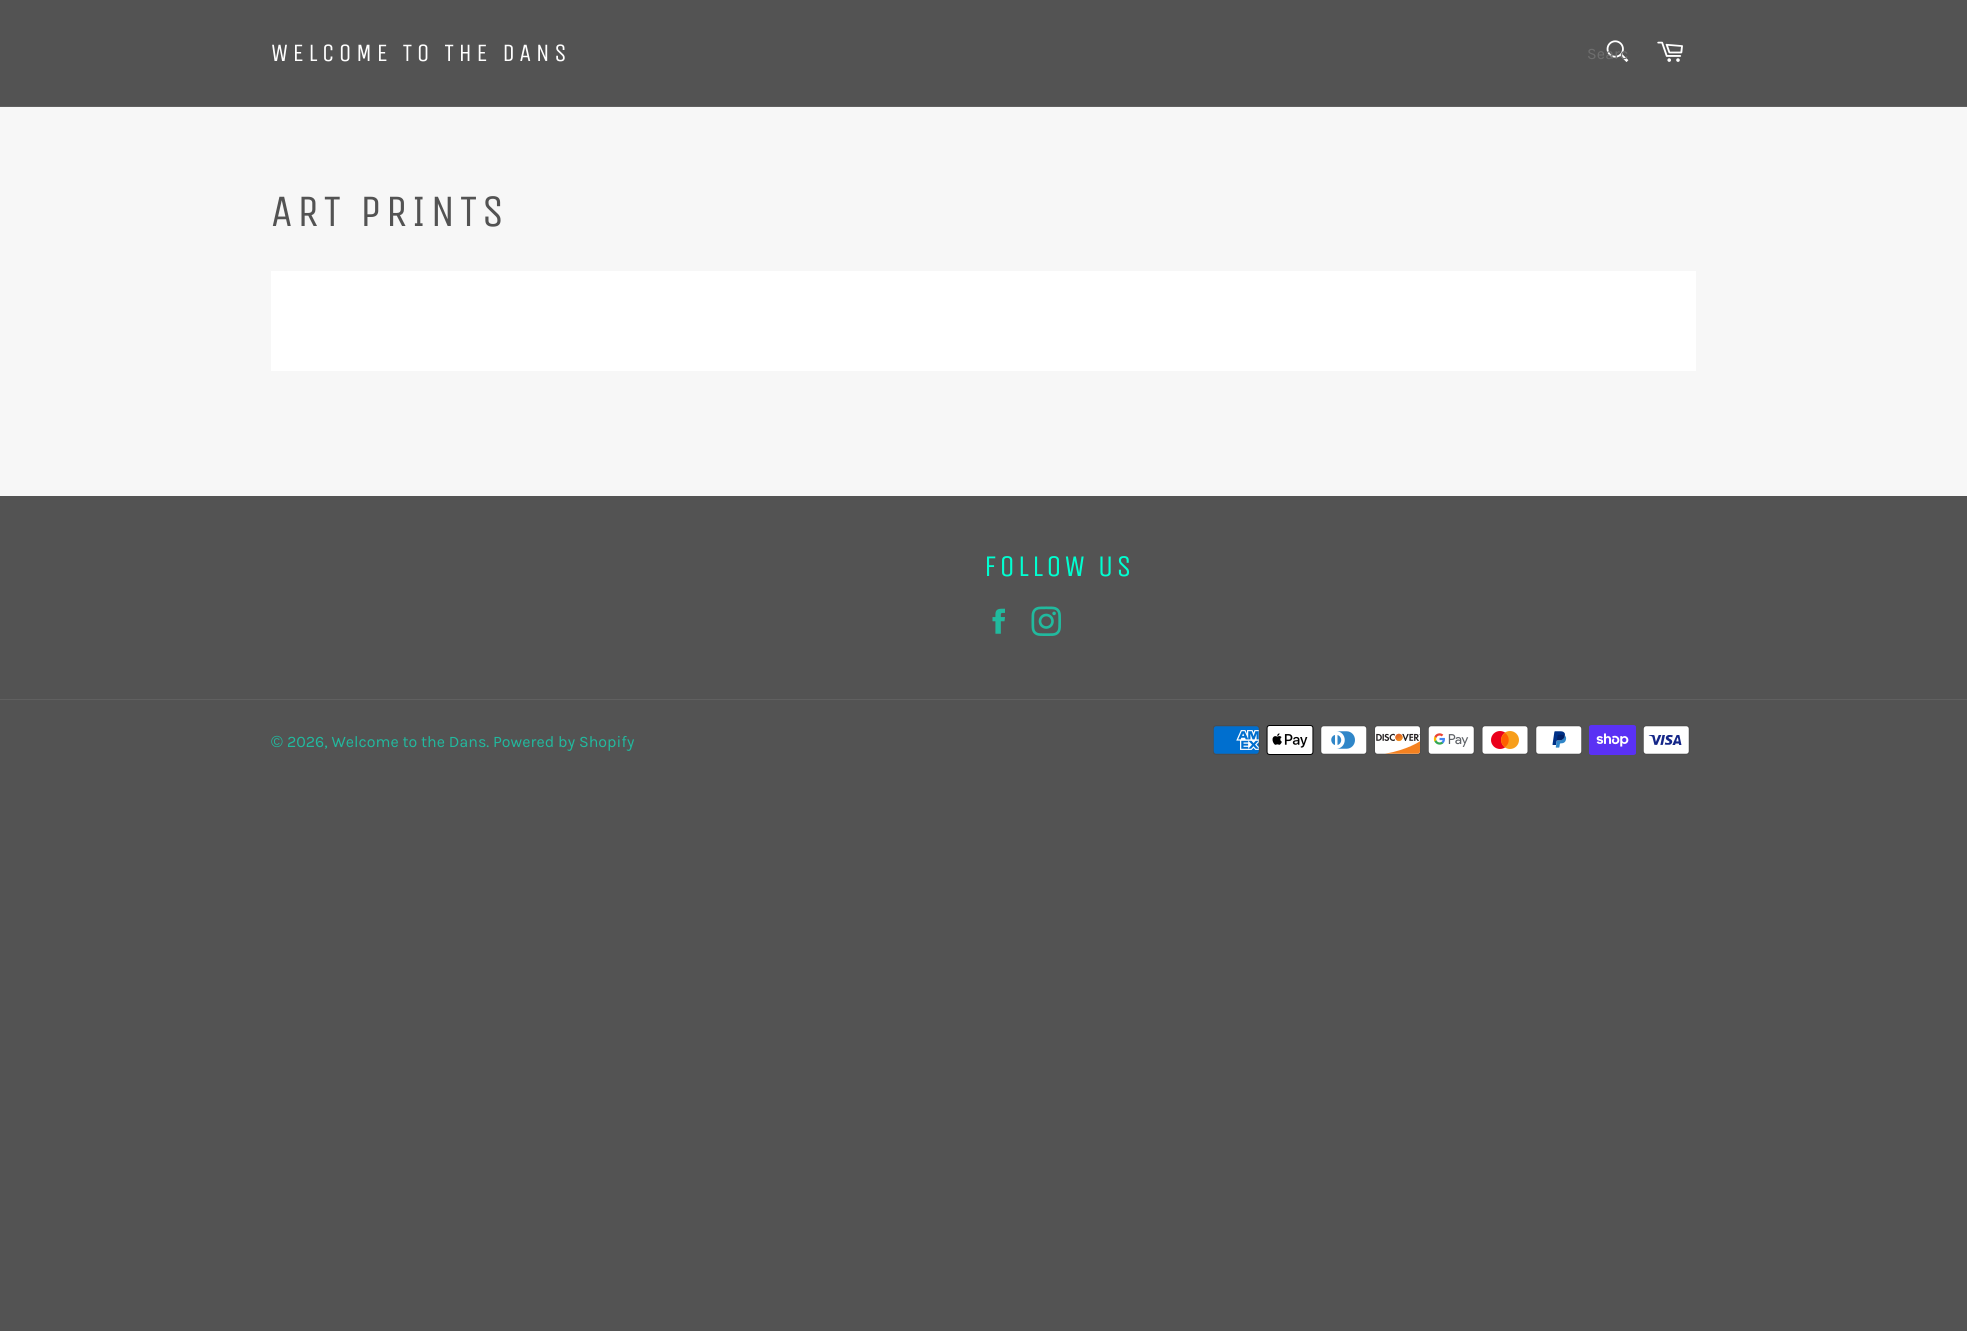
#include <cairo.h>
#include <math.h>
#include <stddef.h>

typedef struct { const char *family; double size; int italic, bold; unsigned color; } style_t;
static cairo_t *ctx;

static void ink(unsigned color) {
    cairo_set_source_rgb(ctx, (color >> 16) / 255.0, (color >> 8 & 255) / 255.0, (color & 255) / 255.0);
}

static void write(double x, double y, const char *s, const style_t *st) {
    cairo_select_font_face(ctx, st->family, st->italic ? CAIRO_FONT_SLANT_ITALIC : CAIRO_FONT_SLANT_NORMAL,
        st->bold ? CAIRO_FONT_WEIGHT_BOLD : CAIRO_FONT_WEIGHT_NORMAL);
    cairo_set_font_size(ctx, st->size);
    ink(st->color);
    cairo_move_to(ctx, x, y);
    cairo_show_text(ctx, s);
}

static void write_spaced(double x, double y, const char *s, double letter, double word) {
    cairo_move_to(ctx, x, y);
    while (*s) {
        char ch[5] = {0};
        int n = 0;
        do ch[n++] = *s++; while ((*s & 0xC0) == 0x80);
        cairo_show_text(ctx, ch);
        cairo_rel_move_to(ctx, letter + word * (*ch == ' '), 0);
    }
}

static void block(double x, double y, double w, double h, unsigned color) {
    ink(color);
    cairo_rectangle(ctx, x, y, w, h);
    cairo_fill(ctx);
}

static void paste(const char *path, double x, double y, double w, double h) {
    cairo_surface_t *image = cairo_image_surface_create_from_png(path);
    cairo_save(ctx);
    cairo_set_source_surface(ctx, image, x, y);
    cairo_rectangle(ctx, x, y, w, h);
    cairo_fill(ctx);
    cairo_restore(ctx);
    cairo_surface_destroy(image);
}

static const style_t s1 = {"Karla", 16, 0, 0, 0x6e6e6e};
static const style_t s2 = {"Liberation Sans", 16, 0, 0, 0x21ba9f};
static const style_t s3 = {"Karla", 16, 0, 0, 0x21ba9f};

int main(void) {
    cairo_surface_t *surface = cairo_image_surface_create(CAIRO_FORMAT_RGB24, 1967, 1331);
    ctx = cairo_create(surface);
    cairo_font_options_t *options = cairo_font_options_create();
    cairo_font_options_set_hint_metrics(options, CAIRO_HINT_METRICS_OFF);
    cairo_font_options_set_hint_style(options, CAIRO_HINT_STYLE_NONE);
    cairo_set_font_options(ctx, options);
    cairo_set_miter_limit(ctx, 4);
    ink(0x535353);
    cairo_paint(ctx);
    block(0, 107, 1967, 389, 0xf7f7f7);
    cairo_select_font_face(ctx, "Unica One", CAIRO_FONT_SLANT_NORMAL, CAIRO_FONT_WEIGHT_NORMAL);
    cairo_set_font_size(ctx, 25);
    ink(0xffffff);
    write_spaced(271, 61, "WELCOME TO THE DANS", 4.5, 0);
    paste("pic1.png", 1606, 40, 23, 22);
    cairo_save(ctx);
    cairo_rectangle(ctx, 1588, 44, 40, 19);
    cairo_clip(ctx);
    write(1587, 59, "Searc", &s1);
    cairo_restore(ctx);
    paste("pic2.png", 1657, 41, 26, 21);
    block(0, 106, 1967, 1, 0x606060);
    cairo_set_font_size(ctx, 45);
    ink(0x535353);
    write_spaced(271, 226, "ART PRINTS", 4.5, 0);
    block(271, 271, 1425, 100, 0xffffff);
    cairo_set_font_size(ctx, 30);
    ink(0x00ffd1);
    write_spaced(984, 576, "FOLLOW US", 3, 0);
    paste("pic3.png", 992, 608, 13, 26);
    paste("pic4.png", 1031, 606, 30, 30);
    block(0, 699, 1967, 1, 0x606060);
    write(271, 747, "©", &s2);
    write(287, 747, "2026, Welcome to the Dans. Powered by Shopify", &s3);
    paste("pic5.png", 1213, 725, 47, 30);
    paste("pic6.png", 1266, 725, 48, 30);
    paste("pic7.png", 1320, 725, 47, 30);
    paste("pic8.png", 1374, 725, 47, 30);
    paste("pic9.png", 1428, 725, 47, 30);
    paste("pic10.png", 1481, 725, 48, 30);
    paste("pic11.png", 1535, 725, 47, 30);
    paste("pic12.png", 1589, 725, 47, 30);
    paste("pic13.png", 1643, 725, 47, 30);
    cairo_surface_write_to_png(surface, "screenshot.png");
    cairo_font_options_destroy(options);
    cairo_destroy(ctx);
    cairo_surface_destroy(surface);
    return 0;
}
